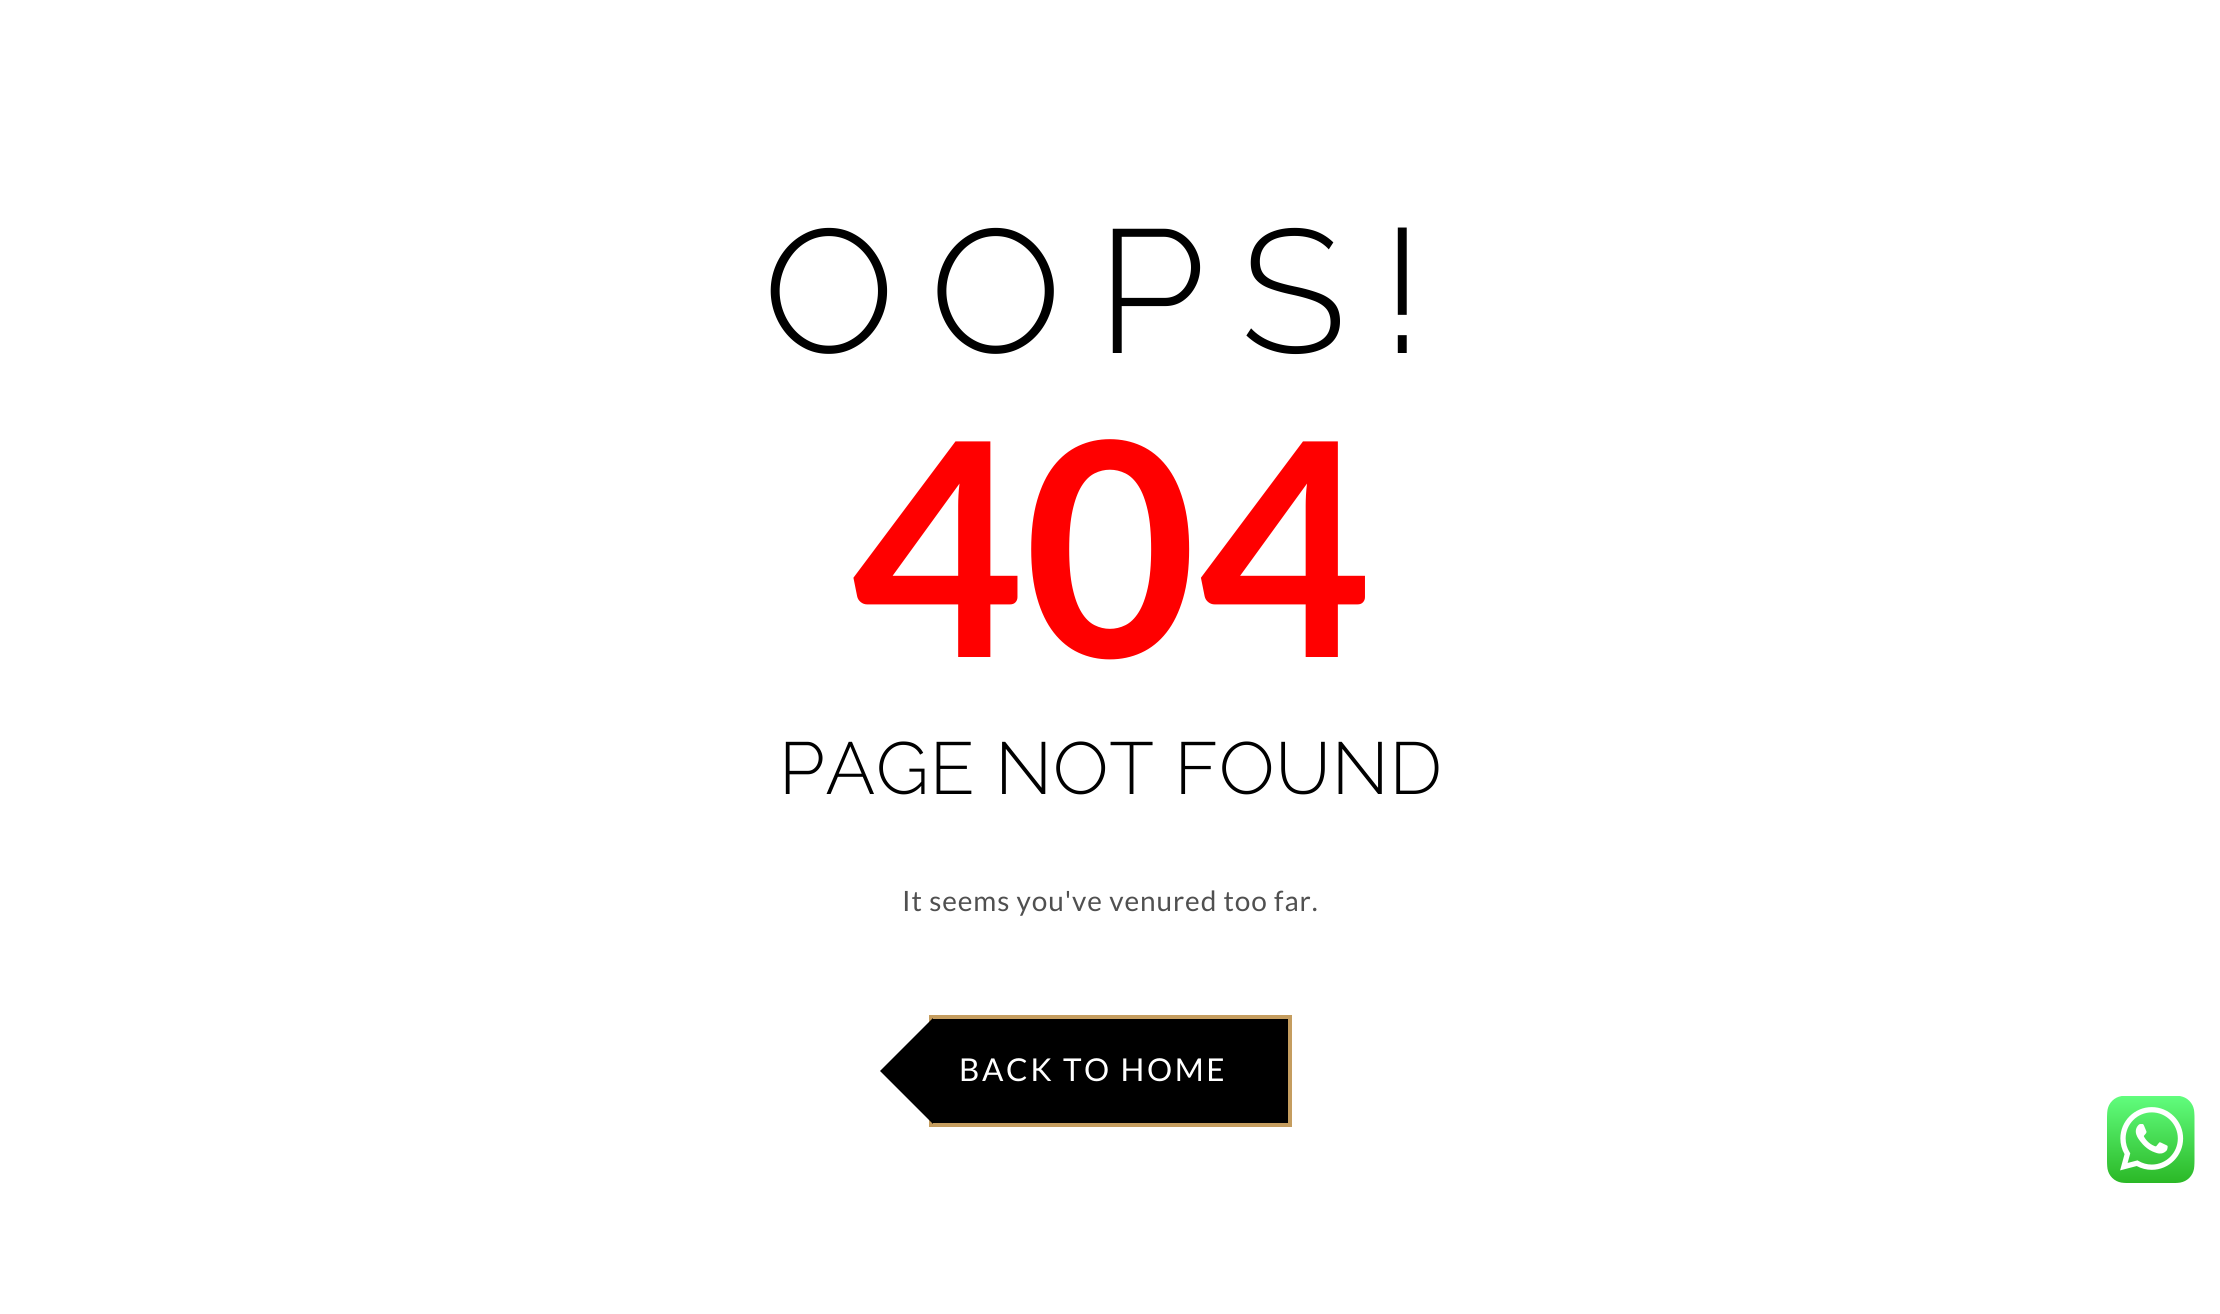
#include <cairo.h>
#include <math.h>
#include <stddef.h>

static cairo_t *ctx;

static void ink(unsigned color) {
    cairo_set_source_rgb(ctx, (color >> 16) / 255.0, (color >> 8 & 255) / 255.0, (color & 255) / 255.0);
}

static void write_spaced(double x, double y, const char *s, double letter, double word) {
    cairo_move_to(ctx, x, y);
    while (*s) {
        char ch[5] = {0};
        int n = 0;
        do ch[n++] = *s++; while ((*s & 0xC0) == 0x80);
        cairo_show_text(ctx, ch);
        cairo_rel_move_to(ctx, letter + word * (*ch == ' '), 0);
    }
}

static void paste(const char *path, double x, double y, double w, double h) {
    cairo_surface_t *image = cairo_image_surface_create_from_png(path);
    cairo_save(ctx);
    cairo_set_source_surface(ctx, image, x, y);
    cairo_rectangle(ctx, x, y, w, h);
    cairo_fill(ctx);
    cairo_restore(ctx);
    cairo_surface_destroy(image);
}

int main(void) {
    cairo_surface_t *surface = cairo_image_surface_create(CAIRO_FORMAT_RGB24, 2220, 1314);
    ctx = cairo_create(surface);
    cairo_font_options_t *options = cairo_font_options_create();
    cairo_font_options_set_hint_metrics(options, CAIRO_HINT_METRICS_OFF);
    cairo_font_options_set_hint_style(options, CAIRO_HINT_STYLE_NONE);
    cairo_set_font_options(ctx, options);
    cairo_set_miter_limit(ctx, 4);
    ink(0xffffff);
    cairo_paint(ctx);
    cairo_select_font_face(ctx, "Raleway Light", CAIRO_FONT_SLANT_NORMAL, CAIRO_FONT_WEIGHT_NORMAL);
    cairo_set_font_size(ctx, 175);
    ink(0x000000);
    write_spaced(763, 353, "OOPS!", 35, 0);
    cairo_select_font_face(ctx, "Lato", CAIRO_FONT_SLANT_NORMAL, CAIRO_FONT_WEIGHT_BOLD);
    cairo_set_font_size(ctx, 298);
    ink(0xff0000);
    write_spaced(850, 657, "404", 0.9, 0);
    cairo_select_font_face(ctx, "Raleway Light", CAIRO_FONT_SLANT_NORMAL, CAIRO_FONT_WEIGHT_NORMAL);
    cairo_set_font_size(ctx, 73.5);
    ink(0x000000);
    write_spaced(779, 794, "PAGE NOT FOUND", 0.9, 0);
    cairo_select_font_face(ctx, "Lato", CAIRO_FONT_SLANT_NORMAL, CAIRO_FONT_WEIGHT_NORMAL);
    cairo_set_font_size(ctx, 28);
    ink(0x505050);
    write_spaced(902, 911, "It seems you've venured too far.", 0.9, 0);
    ink(0x000000);
    cairo_rectangle(ctx, 931, 1017, 359, 108);
    cairo_fill_preserve(ctx);
    ink(0xc59d5f);
    cairo_set_line_width(ctx, 4);
    cairo_stroke(ctx);
    ink(0x000000);
    cairo_new_path(ctx);
    cairo_move_to(ctx, 933, 1018);
    cairo_line_to(ctx, 933, 1124);
    cairo_line_to(ctx, 880, 1071);
    cairo_close_path(ctx);
    cairo_fill(ctx);
    cairo_set_font_size(ctx, 31.5);
    ink(0xffffff);
    write_spaced(959, 1081, "BACK TO HOME", 2.6, 0);
    paste("pic1.png", 2107, 1096, 88, 87);
    cairo_surface_write_to_png(surface, "screenshot.png");
    cairo_font_options_destroy(options);
    cairo_destroy(ctx);
    cairo_surface_destroy(surface);
    return 0;
}
